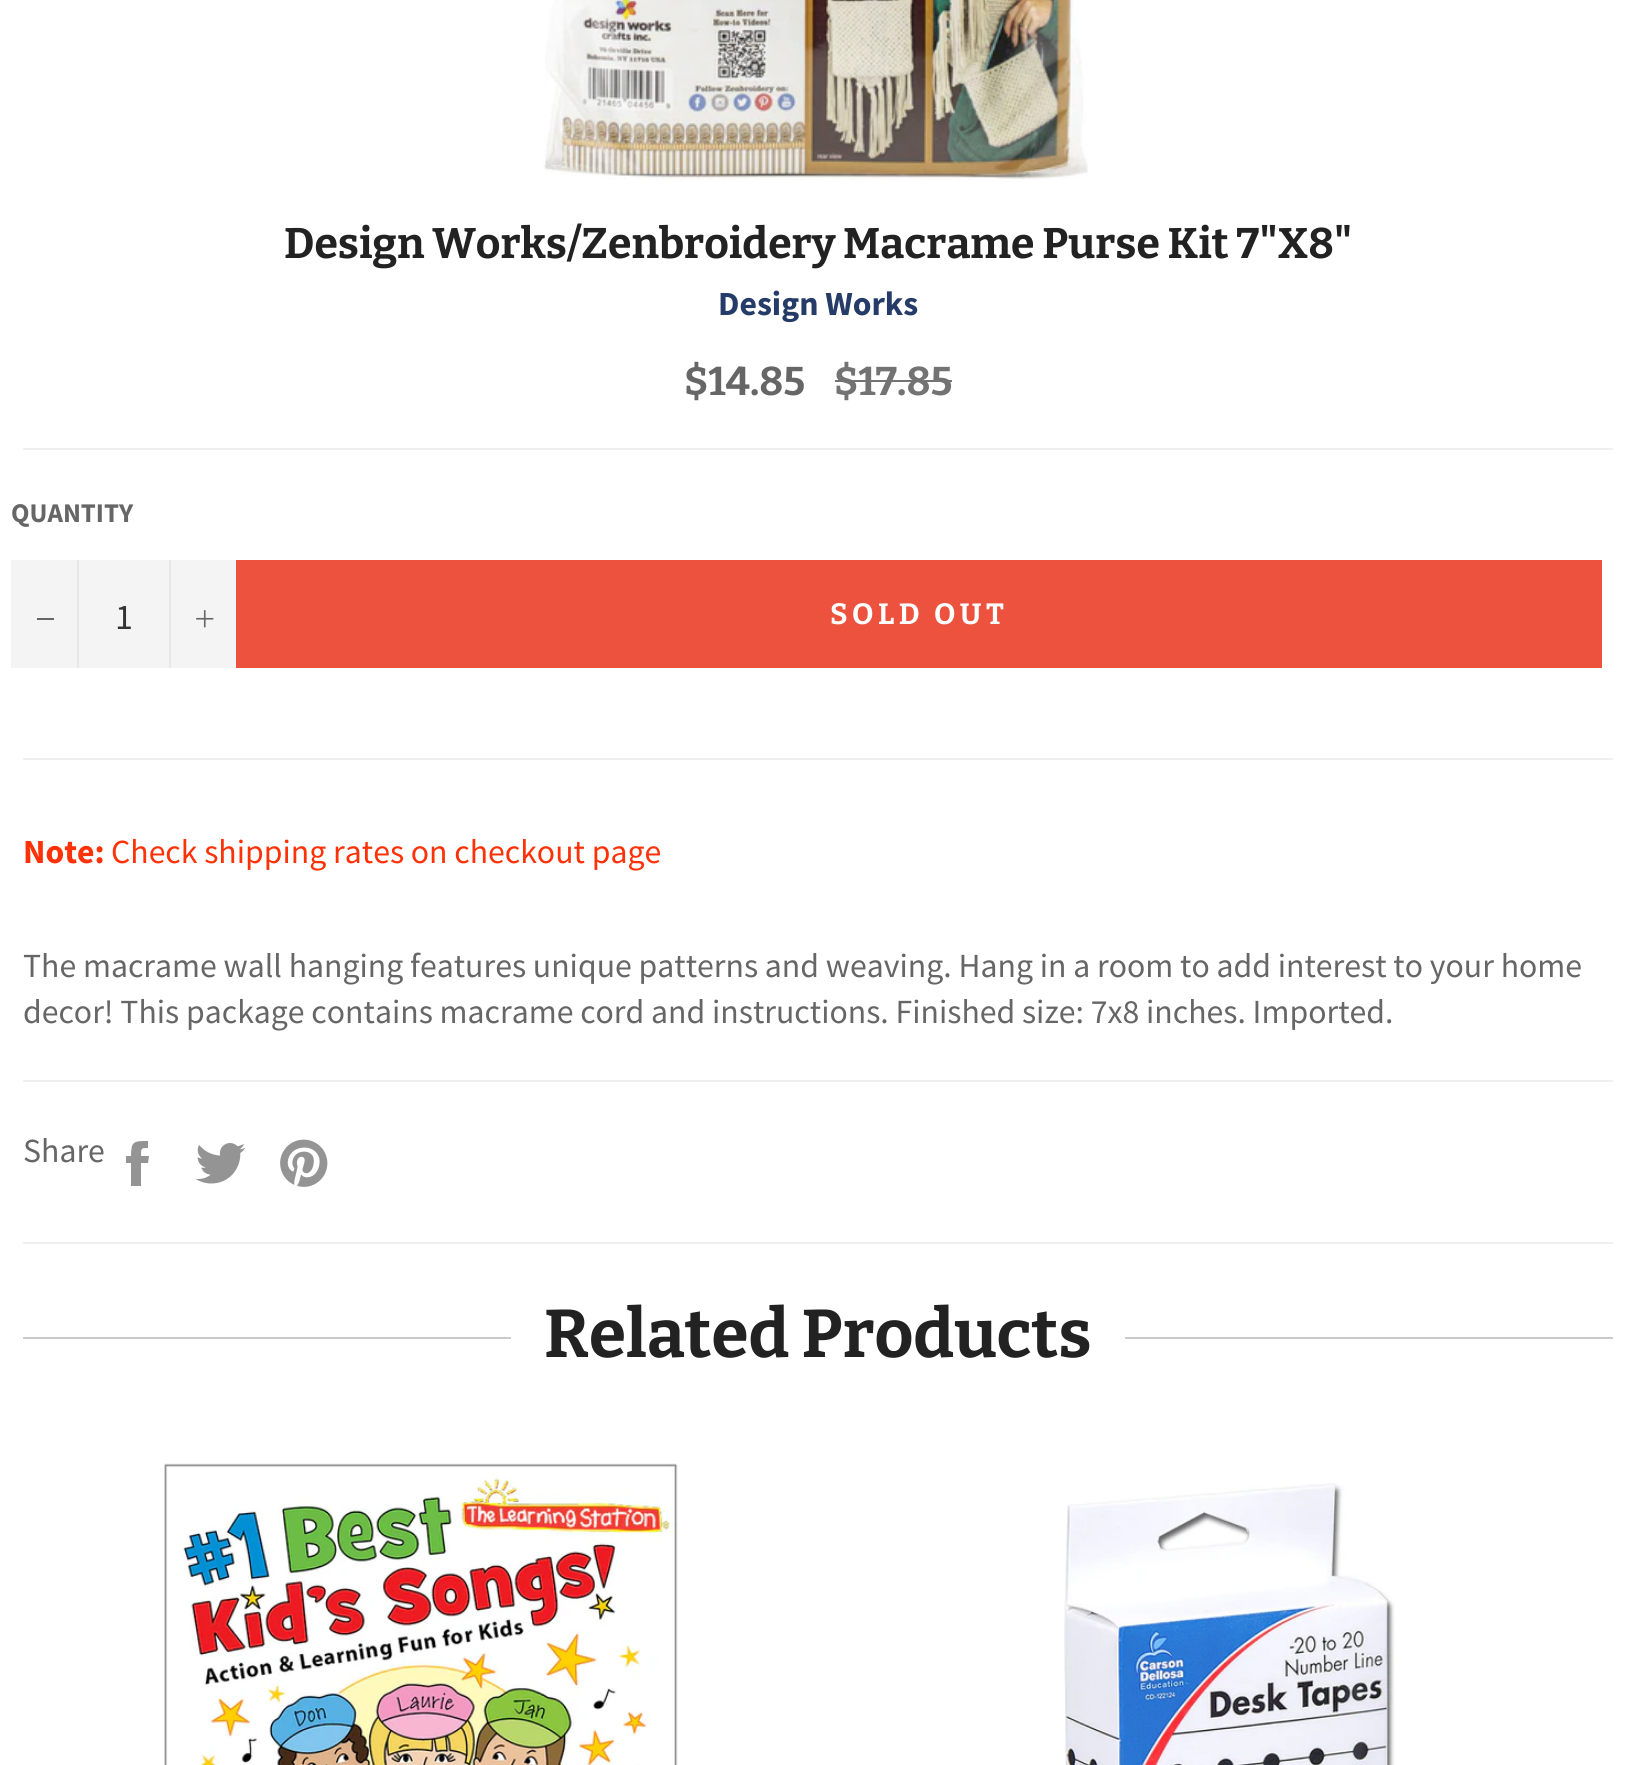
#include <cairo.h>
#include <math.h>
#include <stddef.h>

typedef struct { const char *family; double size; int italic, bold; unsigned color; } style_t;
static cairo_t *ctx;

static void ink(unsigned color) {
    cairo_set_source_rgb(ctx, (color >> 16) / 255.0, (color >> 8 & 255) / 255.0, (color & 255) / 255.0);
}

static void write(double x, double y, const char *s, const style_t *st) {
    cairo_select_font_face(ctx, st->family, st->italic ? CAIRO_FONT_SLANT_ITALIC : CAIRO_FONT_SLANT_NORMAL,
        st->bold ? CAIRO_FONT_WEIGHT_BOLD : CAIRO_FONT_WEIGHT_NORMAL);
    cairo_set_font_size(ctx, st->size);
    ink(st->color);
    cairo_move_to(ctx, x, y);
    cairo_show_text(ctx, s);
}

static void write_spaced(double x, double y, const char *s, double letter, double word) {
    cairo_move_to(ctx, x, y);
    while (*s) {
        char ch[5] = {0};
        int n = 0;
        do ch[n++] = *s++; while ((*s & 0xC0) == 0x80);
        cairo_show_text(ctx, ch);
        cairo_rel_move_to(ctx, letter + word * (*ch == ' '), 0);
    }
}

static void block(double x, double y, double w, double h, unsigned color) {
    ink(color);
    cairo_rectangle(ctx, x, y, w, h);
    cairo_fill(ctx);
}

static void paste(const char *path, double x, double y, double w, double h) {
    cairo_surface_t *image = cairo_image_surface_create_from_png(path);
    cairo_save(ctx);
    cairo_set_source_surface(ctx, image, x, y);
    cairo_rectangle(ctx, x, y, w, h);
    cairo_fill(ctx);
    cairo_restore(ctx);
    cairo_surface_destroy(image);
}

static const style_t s1 = {"Bitter", 42.7, 0, 1, 0x222222};
static const style_t s2 = {"Source Sans Pro", 33.75, 0, 1, 0x253c69};
static const style_t s3 = {"Bitter", 40, 0, 1, 0x666666};
static const style_t s4 = {"Bitter", 40, 0, 1, 0x737373};
static const style_t s5 = {"Source Sans Pro", 27, 0, 1, 0x666666};
static const style_t s6 = {"Source Sans Pro", 36, 0, 0, 0x333333};
static const style_t s7 = {"Source Sans Pro", 33.75, 0, 1, 0xff3107};
static const style_t s8 = {"Source Sans Pro", 33.75, 0, 0, 0xff3107};
static const style_t s9 = {"Source Sans Pro", 33.75, 0, 0, 0x666666};
static const style_t s10 = {"Bitter", 67.5, 0, 1, 0x222222};

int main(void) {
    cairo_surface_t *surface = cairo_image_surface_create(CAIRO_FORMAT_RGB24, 1634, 1765);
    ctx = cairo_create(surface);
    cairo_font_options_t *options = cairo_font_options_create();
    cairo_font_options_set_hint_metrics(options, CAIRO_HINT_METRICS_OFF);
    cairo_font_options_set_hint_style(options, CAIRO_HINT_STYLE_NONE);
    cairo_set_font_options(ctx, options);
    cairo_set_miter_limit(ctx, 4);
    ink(0xffffff);
    cairo_paint(ctx);
    paste("pic1.png", 543, 0, 545, 180);
    write(284, 258, "Design Works/Zenbroidery Macrame Purse Kit 7\"X8\"", &s1);
    write(718, 315, "Design Works", &s2);
    write(684, 395, "$14.85", &s3);
    write(834, 395, "$17.85", &s4);
    block(835, 380, 117, 2, 0x737373);
    block(23, 448, 1590, 2, 0xf0f0f0);
    write(11, 522, "QUANTITY", &s5);
    block(11, 560, 225, 108, 0xf4f4f4);
    block(77, 560, 2, 108, 0xe7e7e7);
    block(37, 618, 17, 2, 0x666666);
    write(115, 629, "1", &s6);
    block(169, 560, 2, 108, 0xe7e7e7);
    paste("pic2.png", 196, 610, 18, 18);
    block(236, 560, 1366, 108, 0xec523e);
    cairo_select_font_face(ctx, "Bitter", CAIRO_FONT_SLANT_NORMAL, CAIRO_FONT_WEIGHT_BOLD);
    cairo_set_font_size(ctx, 29.25);
    ink(0xffffff);
    write_spaced(830, 624, "SOLD OUT", 4.5, 0);
    block(23, 758, 1590, 2, 0xf0f0f0);
    write(23, 863, "Note:", &s7);
    write(111, 863, "Check shipping rates on checkout page", &s8);
    write(23, 977, "The macrame wall hanging features unique patterns and weaving. Hang in a room to add interest to your home", &s9);
    write(23, 1023, "decor! This package contains macrame cord and instructions. Finished size: 7x8 inches. Imported.", &s9);
    block(23, 1080, 1590, 2, 0xf0f0f0);
    write(23, 1162, "Share", &s9);
    ink(0x949494);
    cairo_new_path(ctx);
    cairo_move_to(ctx, 141, 1156);
    cairo_curve_to(ctx, 141, 1148, 141, 1148, 148, 1148);
    cairo_line_to(ctx, 148, 1141);
    cairo_curve_to(ctx, 134, 1141, 131, 1141, 131, 1156);
    cairo_line_to(ctx, 126, 1156);
    cairo_line_to(ctx, 126, 1163);
    cairo_line_to(ctx, 131, 1163);
    cairo_line_to(ctx, 131, 1186);
    cairo_line_to(ctx, 141, 1186);
    cairo_line_to(ctx, 141, 1163);
    cairo_line_to(ctx, 148, 1163);
    cairo_line_to(ctx, 149, 1156);
    cairo_close_path(ctx);
    cairo_fill(ctx);
    paste("pic3.png", 196, 1143, 50, 41);
    paste("pic4.png", 280, 1139, 48, 48);
    block(23, 1242, 1590, 2, 0xf0f0f0);
    block(23, 1337, 1590, 2, 0xcacaca);
    block(511, 1337, 614, 2, 0xffffff);
    write(544, 1357, "Related Products", &s10);
    paste("pic5.png", 164, 1463, 514, 302);
    paste("pic6.png", 1064, 1483, 331, 282);
    cairo_surface_write_to_png(surface, "screenshot.png");
    cairo_font_options_destroy(options);
    cairo_destroy(ctx);
    cairo_surface_destroy(surface);
    return 0;
}
